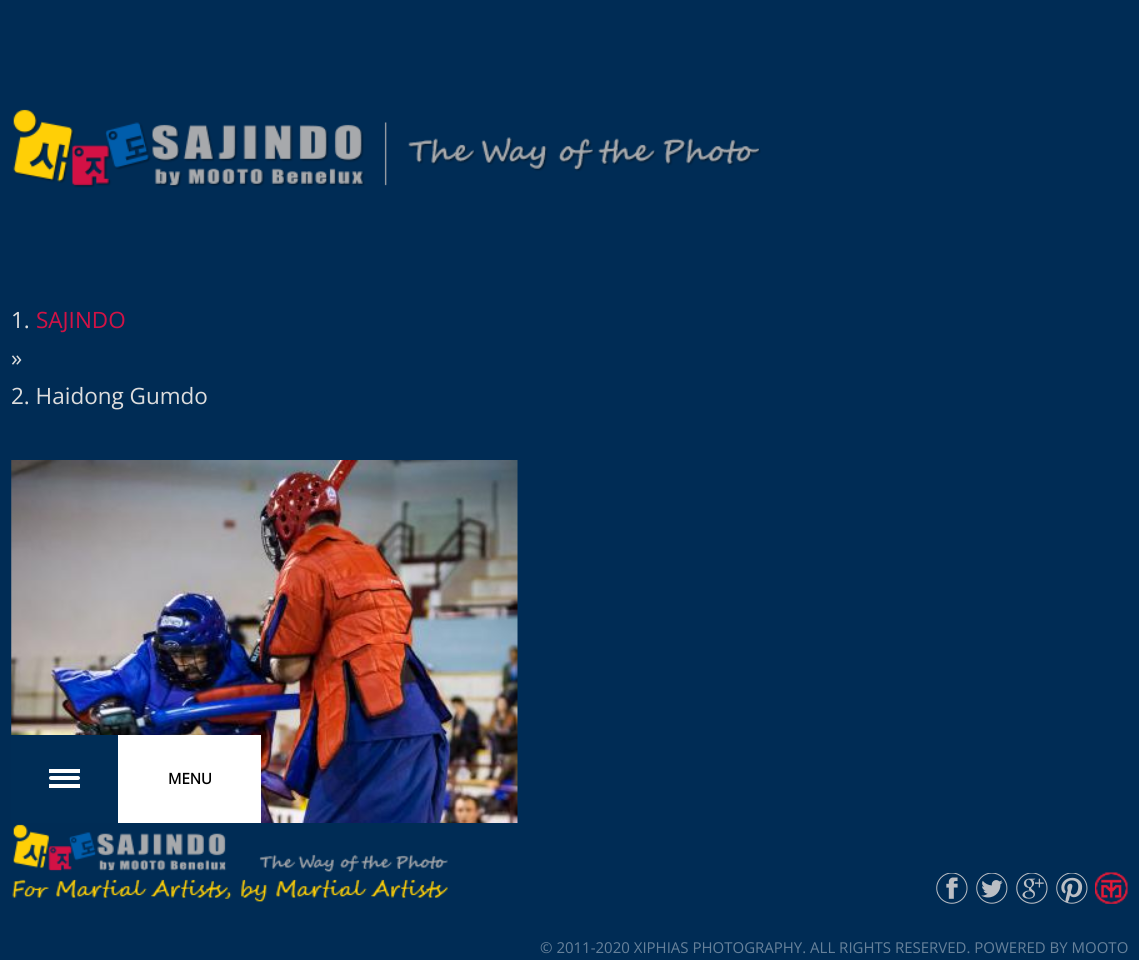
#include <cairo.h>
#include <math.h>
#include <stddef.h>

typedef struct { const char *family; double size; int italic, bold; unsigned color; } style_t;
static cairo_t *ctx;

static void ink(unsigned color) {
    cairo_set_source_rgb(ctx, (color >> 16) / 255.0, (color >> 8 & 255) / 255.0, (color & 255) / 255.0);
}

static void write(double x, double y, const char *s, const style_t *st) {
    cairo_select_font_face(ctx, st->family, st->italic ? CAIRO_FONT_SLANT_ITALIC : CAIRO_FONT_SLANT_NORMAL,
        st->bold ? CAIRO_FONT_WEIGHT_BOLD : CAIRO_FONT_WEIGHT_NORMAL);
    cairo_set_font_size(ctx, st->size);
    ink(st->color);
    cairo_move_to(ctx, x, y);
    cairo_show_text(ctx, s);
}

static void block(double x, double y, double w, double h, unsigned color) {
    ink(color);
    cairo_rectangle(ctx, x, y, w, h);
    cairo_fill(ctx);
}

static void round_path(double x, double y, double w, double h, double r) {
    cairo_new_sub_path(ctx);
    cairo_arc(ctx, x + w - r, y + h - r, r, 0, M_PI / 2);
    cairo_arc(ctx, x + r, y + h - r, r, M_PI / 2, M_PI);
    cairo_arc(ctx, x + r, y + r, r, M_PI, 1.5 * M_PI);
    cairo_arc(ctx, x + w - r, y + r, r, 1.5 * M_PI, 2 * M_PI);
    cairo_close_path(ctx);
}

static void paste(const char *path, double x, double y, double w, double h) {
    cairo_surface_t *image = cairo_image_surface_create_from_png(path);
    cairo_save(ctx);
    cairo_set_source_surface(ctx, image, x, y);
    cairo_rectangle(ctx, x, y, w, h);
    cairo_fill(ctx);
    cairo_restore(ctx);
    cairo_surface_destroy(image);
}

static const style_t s1 = {"Open Sans", 22.5, 0, 0, 0xdddddd};
static const style_t s2 = {"Open Sans", 22.5, 0, 0, 0xd21245};
static const style_t s3 = {"Open Sans", 15, 0, 1, 0x000000};
static const style_t s4 = {"Open Sans", 15, 0, 0, 0x66819a};

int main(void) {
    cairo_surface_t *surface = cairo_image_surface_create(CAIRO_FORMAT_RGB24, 1139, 960);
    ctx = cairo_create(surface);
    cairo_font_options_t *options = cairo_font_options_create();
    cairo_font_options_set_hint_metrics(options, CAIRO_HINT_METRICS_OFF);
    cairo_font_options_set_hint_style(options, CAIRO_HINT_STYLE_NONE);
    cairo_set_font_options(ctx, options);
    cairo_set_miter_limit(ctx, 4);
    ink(0x002c55);
    cairo_paint(ctx);
    paste("pic1.png", 13, 109, 748, 79);
    write(11, 328, "1.", &s1);
    write(36, 328, "SAJINDO", &s2);
    write(11, 366, "»", &s1);
    write(11, 404, "2. Haidong Gumdo", &s1);
    paste("pic2.png", 11, 460, 507, 363);
    block(118, 735, 143, 88, 0xffffff);
    block(11, 735, 107, 88, 0x002d56);
    ink(0xffffff);
    round_path(49, 776, 31, 4, 2);
    cairo_fill(ctx);
    block(49, 769, 31, 4, 0xffffff);
    block(49, 784, 31, 4, 0xffffff);
    write(168, 784, "MENU", &s3);
    paste("pic3.png", 12, 824, 436, 78);
    paste("pic4.png", 936, 873, 32, 31);
    paste("pic5.png", 976, 873, 32, 31);
    paste("pic6.png", 1016, 873, 32, 31);
    paste("pic7.png", 1056, 873, 32, 31);
    paste("pic8.png", 1095, 872, 33, 32);
    write(540, 953, "© 2011-2020 XIPHIAS PHOTOGRAPHY. ALL RIGHTS RESERVED. POWERED BY MOOTO", &s4);
    cairo_surface_write_to_png(surface, "screenshot.png");
    cairo_font_options_destroy(options);
    cairo_destroy(ctx);
    cairo_surface_destroy(surface);
    return 0;
}
